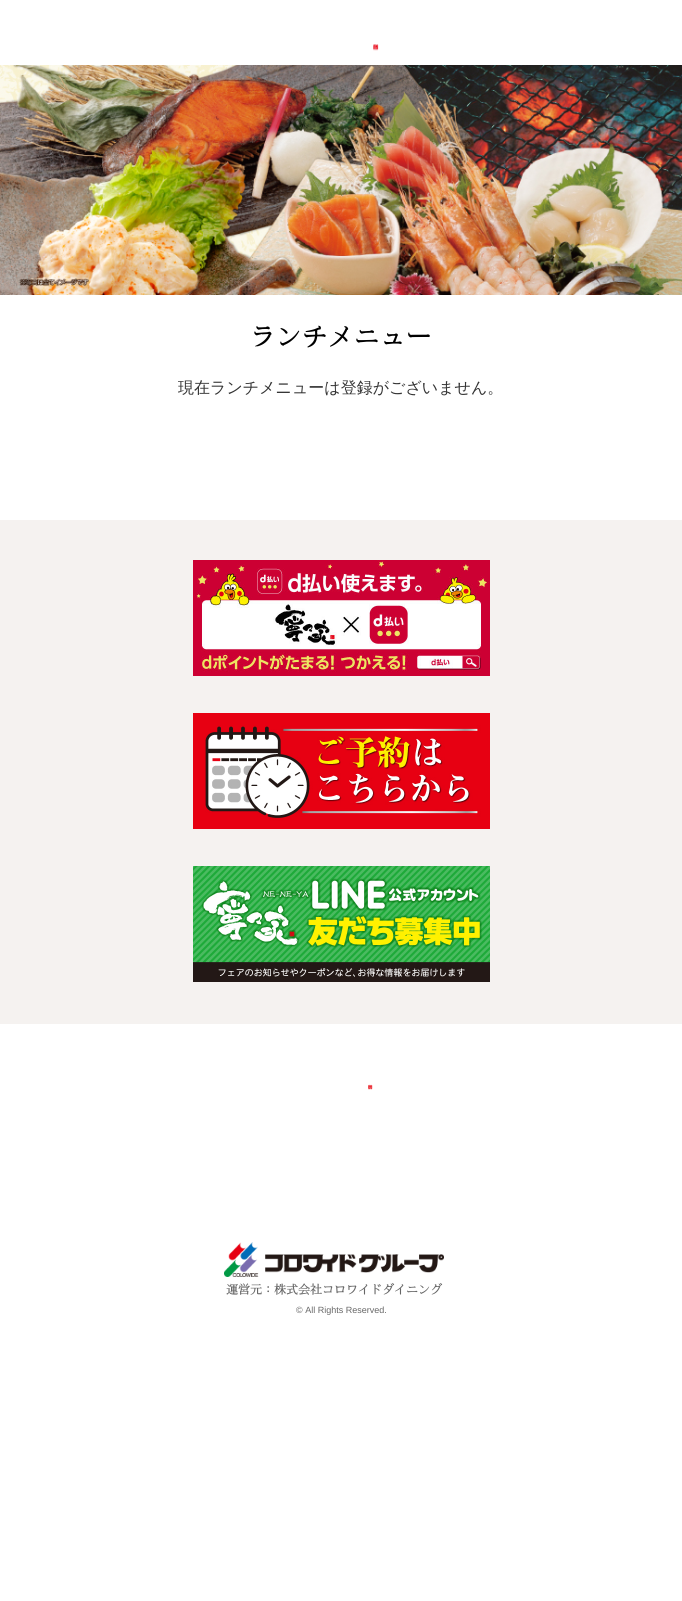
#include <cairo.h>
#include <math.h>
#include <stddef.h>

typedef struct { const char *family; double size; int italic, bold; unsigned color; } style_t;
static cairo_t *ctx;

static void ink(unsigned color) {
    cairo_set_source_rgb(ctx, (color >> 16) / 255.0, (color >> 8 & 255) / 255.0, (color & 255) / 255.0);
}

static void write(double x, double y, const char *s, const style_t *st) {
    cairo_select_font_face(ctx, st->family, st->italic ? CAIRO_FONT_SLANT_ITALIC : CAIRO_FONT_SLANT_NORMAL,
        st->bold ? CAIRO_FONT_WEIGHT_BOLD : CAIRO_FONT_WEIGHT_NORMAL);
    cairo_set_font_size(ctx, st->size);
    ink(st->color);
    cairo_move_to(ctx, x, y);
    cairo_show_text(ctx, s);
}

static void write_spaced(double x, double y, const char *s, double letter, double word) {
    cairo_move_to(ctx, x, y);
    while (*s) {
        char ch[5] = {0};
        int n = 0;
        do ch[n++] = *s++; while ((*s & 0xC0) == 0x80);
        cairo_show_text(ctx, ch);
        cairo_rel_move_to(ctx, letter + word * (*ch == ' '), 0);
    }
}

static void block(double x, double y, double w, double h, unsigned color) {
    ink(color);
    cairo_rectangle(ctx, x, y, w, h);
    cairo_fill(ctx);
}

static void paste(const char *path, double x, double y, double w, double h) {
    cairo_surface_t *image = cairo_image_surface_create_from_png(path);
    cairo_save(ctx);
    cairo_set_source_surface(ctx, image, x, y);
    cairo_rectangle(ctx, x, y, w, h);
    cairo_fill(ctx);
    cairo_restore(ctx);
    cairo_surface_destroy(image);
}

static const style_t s1 = {"WenQuanYi Zen Hei Medium", 16, 0, 0, 0x343434};
static const style_t s2 = {"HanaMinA", 12, 0, 1, 0x666666};
static const style_t s3 = {"Liberation Sans", 9, 0, 0, 0x666666};

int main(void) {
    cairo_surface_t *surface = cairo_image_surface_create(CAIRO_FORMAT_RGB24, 682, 1601);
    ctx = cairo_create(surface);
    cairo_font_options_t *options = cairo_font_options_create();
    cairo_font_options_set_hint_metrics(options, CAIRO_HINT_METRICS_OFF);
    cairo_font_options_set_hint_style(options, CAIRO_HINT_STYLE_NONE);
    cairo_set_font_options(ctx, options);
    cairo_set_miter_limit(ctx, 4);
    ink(0xffffff);
    cairo_paint(ctx);
    paste("pic1.png", 373, 44, 6, 7);
    paste("pic2.png", 0, 65, 682, 230);
    cairo_select_font_face(ctx, "HanaMinA", CAIRO_FONT_SLANT_NORMAL, CAIRO_FONT_WEIGHT_BOLD);
    cairo_set_font_size(ctx, 25);
    ink(0x000000);
    write_spaced(250, 346, "ランチメニュー", 1, 0);
    write(178, 393, "現在ランチメニューは登録がございません。", &s1);
    block(0, 520, 682, 504, 0xf5f2f0);
    paste("pic3.png", 193, 560, 297, 116);
    paste("pic4.png", 193, 713, 297, 116);
    paste("pic5.png", 193, 866, 297, 116);
    paste("pic6.png", 368, 1084, 5, 6);
    paste("pic7.png", 224, 1242, 220, 35);
    write(226, 1294, "運営元：株式会社コロワイドダイニング", &s2);
    write(296, 1313, "© All Rights Reserved.", &s3);
    cairo_surface_write_to_png(surface, "screenshot.png");
    cairo_font_options_destroy(options);
    cairo_destroy(ctx);
    cairo_surface_destroy(surface);
    return 0;
}
